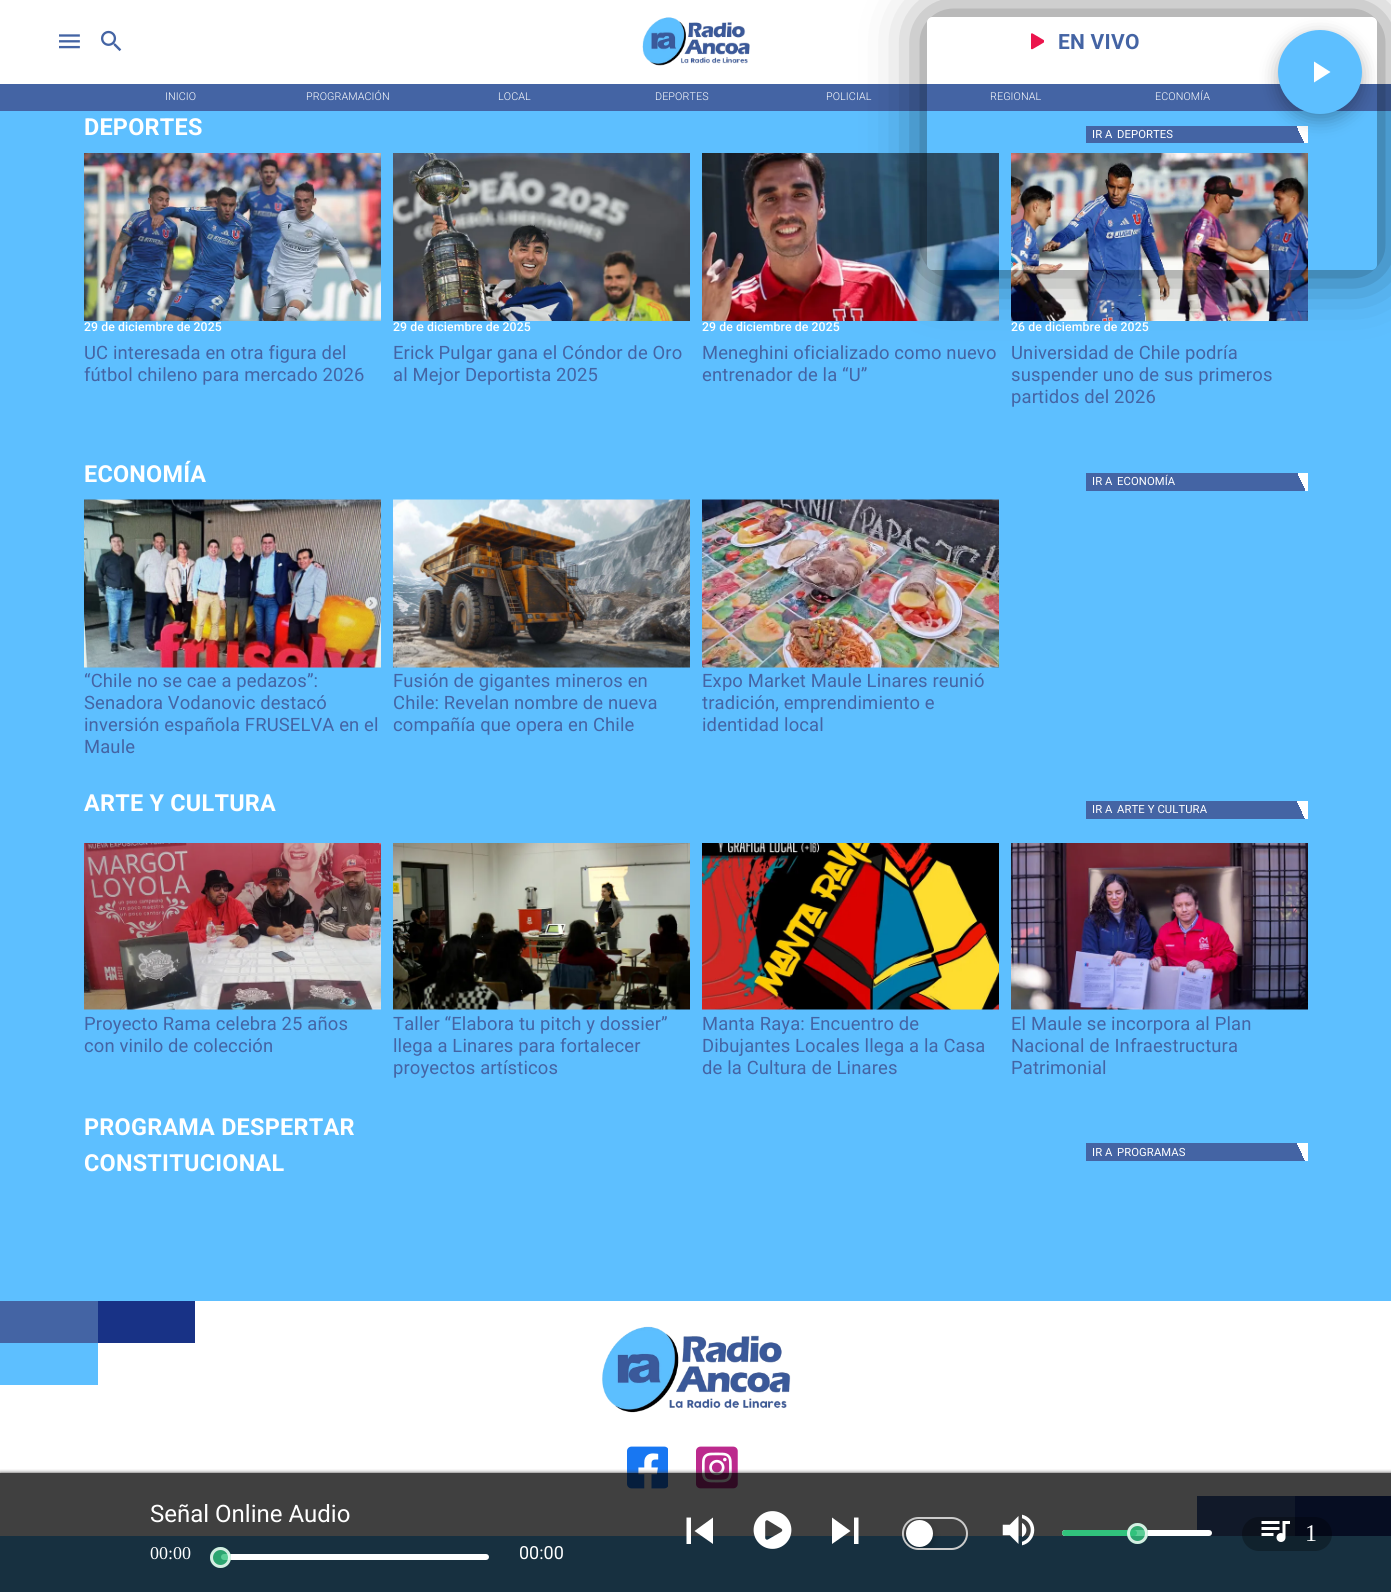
#include <cairo.h>
#include <math.h>
#include <stddef.h>

typedef struct { const char *family; double size; int italic, bold; unsigned color; } style_t;
static cairo_t *ctx;

static void ink(unsigned color) {
    cairo_set_source_rgb(ctx, (color >> 16) / 255.0, (color >> 8 & 255) / 255.0, (color & 255) / 255.0);
}

static void write(double x, double y, const char *s, const style_t *st) {
    cairo_select_font_face(ctx, st->family, st->italic ? CAIRO_FONT_SLANT_ITALIC : CAIRO_FONT_SLANT_NORMAL,
        st->bold ? CAIRO_FONT_WEIGHT_BOLD : CAIRO_FONT_WEIGHT_NORMAL);
    cairo_set_font_size(ctx, st->size);
    ink(st->color);
    cairo_move_to(ctx, x, y);
    cairo_show_text(ctx, s);
}

static void write_spaced(double x, double y, const char *s, double letter, double word) {
    cairo_move_to(ctx, x, y);
    while (*s) {
        char ch[5] = {0};
        int n = 0;
        do ch[n++] = *s++; while ((*s & 0xC0) == 0x80);
        cairo_show_text(ctx, ch);
        cairo_rel_move_to(ctx, letter + word * (*ch == ' '), 0);
    }
}

static void block(double x, double y, double w, double h, unsigned color) {
    ink(color);
    cairo_rectangle(ctx, x, y, w, h);
    cairo_fill(ctx);
}

static void round_path(double x, double y, double w, double h, double r) {
    cairo_new_sub_path(ctx);
    cairo_arc(ctx, x + w - r, y + h - r, r, 0, M_PI / 2);
    cairo_arc(ctx, x + r, y + h - r, r, M_PI / 2, M_PI);
    cairo_arc(ctx, x + r, y + r, r, M_PI, 1.5 * M_PI);
    cairo_arc(ctx, x + w - r, y + r, r, 1.5 * M_PI, 2 * M_PI);
    cairo_close_path(ctx);
}

static void blur_box(double x, double y, double w, double h, double r, double blur, double alpha) {
    cairo_push_group_with_content(ctx, CAIRO_CONTENT_ALPHA);
    cairo_set_operator(ctx, CAIRO_OPERATOR_SOURCE);
    for (int i = 15; i >= -15 && fmin(w, h) + blur * i / 3 > 0; i -= 2) {
        double e = blur * i / 6;
        cairo_set_source_rgba(ctx, 0, 0, 0, alpha * erfc((i - 1) / 8.5) / 2);
        round_path(x - e, y - e, w + 2 * e, h + 2 * e, fmax(0, fmin(r + e + blur * .6, fmin(w, h) / 2 + e)));
        cairo_fill(ctx);
    }
    cairo_pattern_t *soft = cairo_pop_group(ctx);
    cairo_mask(ctx, soft);
    cairo_pattern_destroy(soft);
}

static void paste(const char *path, double x, double y, double w, double h) {
    cairo_surface_t *image = cairo_image_surface_create_from_png(path);
    cairo_save(ctx);
    cairo_set_source_surface(ctx, image, x, y);
    cairo_rectangle(ctx, x, y, w, h);
    cairo_fill(ctx);
    cairo_restore(ctx);
    cairo_surface_destroy(image);
}

static const style_t s1 = {"Roboto", 24, 0, 0, 0xffffff};
static const style_t s2 = {"Liberation Serif", 18, 0, 0, 0xffffff};
static const style_t s3 = {"Roboto", 18, 0, 0, 0xffffff};
static const style_t s4 = {"Liberation Serif", 24, 0, 0, 0xffffff};

int main(void) {
    cairo_surface_t *surface = cairo_image_surface_create(CAIRO_FORMAT_RGB24, 1391, 1592);
    ctx = cairo_create(surface);
    cairo_font_options_t *options = cairo_font_options_create();
    cairo_font_options_set_hint_metrics(options, CAIRO_HINT_METRICS_OFF);
    cairo_font_options_set_hint_style(options, CAIRO_HINT_STYLE_NONE);
    cairo_set_font_options(ctx, options);
    cairo_set_miter_limit(ctx, 4);
    cairo_pattern_t *gradient;
    ink(0x5dbfff);
    cairo_paint(ctx);
    block(0, 0, 1391, 84, 0xffffff);
    paste("pic4.png", 1031, 33, 13, 17);
    block(0, 84, 1391, 27, 0x4464a4);
    gradient = cairo_pattern_create_linear(1103, 178, 1291, 90);
    cairo_pattern_add_color_stop_rgba(gradient, 0.95, 0.267, 0.392, 0.643, 1);
    cairo_pattern_add_color_stop_rgba(gradient, 0.95, 1, 1, 1, 1);
    cairo_set_source(ctx, gradient);
    cairo_pattern_destroy(gradient);
    cairo_rectangle(ctx, 1086, 126, 222, 17);
    cairo_fill(ctx);
    paste("pic7.png", 702, 153, 297, 168);
    paste("pic8.png", 1011, 153, 297, 168);
    cairo_save(ctx);
    cairo_set_fill_rule(ctx, CAIRO_FILL_RULE_EVEN_ODD);
    cairo_new_path(ctx);
    cairo_move_to(ctx, 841, 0);
    cairo_line_to(ctx, 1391, 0);
    cairo_line_to(ctx, 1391, 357);
    cairo_line_to(ctx, 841, 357);
    cairo_close_path(ctx);
    cairo_move_to(ctx, 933, 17);
    cairo_line_to(ctx, 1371, 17);
    cairo_curve_to(ctx, 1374.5, 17, 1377, 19.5, 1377, 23);
    cairo_line_to(ctx, 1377, 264);
    cairo_curve_to(ctx, 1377, 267.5, 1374.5, 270, 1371, 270);
    cairo_line_to(ctx, 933, 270);
    cairo_curve_to(ctx, 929.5, 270, 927, 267.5, 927, 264);
    cairo_line_to(ctx, 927, 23);
    cairo_curve_to(ctx, 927, 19.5, 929.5, 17, 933, 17);
    cairo_close_path(ctx);
    cairo_clip(ctx);
    ink(0x000000);
    blur_box(935, 24, 435, 239, 0, 31, 0.75);
    cairo_restore(ctx);
    paste("pic1.png", 59, 34, 21, 15);
    paste("pic2.png", 101, 30, 21, 22);
    paste("pic3.png", 642, 17, 108, 49);
    cairo_select_font_face(ctx, "Roboto", CAIRO_FONT_SLANT_NORMAL, CAIRO_FONT_WEIGHT_BOLD);
    cairo_set_font_size(ctx, 21);
    ink(0x4464a4);
    write_spaced(1058, 49, "EN VIVO", 0.25, 0);
    cairo_select_font_face(ctx, "Roboto Light", CAIRO_FONT_SLANT_NORMAL, CAIRO_FONT_WEIGHT_NORMAL);
    cairo_set_font_size(ctx, 10.75);
    ink(0xffffff);
    write_spaced(165, 100, "INICIO", 0.1, 0);
    write_spaced(306, 100, "PROGRAMACIÓN", 0.1, 0);
    write_spaced(498, 100, "LOCAL", 0.1, 0);
    write_spaced(655, 100, "DEPORTES", 0.1, 0);
    write_spaced(826, 100, "POLICIAL", 0.1, 0);
    write_spaced(990, 100, "REGIONAL", 0.1, 0);
    write_spaced(1155, 100, "ECONOMÍA", 0.1, 0);
    cairo_select_font_face(ctx, "Roboto", CAIRO_FONT_SLANT_NORMAL, CAIRO_FONT_WEIGHT_BOLD);
    cairo_set_font_size(ctx, 23.4);
    write_spaced(84, 135, "DEPORTES", 0.25, 0);
    cairo_select_font_face(ctx, "Roboto", CAIRO_FONT_SLANT_NORMAL, CAIRO_FONT_WEIGHT_NORMAL);
    cairo_set_font_size(ctx, 11.25);
    write_spaced(1092, 138, "IR A", 0.1, 0);
    write_spaced(1117, 138, "DEPORTES", 0.1, 0);
    paste("pic5.png", 84, 153, 297, 168);
    cairo_select_font_face(ctx, "Roboto Medium", CAIRO_FONT_SLANT_NORMAL, CAIRO_FONT_WEIGHT_NORMAL);
    cairo_set_font_size(ctx, 12.25);
    write_spaced(84, 331, "29 de diciembre de 2025", 0.1, 0);
    cairo_select_font_face(ctx, "Roboto", CAIRO_FONT_SLANT_NORMAL, CAIRO_FONT_WEIGHT_NORMAL);
    cairo_set_font_size(ctx, 18.4);
    ink(0x4464a4);
    write_spaced(84, 359, "UC interesada en otra figura del", 0.15, 0);
    write_spaced(84, 381, "fútbol chileno para mercado 2026", 0.15, 0);
    paste("pic6.png", 393, 153, 297, 168);
    cairo_select_font_face(ctx, "Roboto Medium", CAIRO_FONT_SLANT_NORMAL, CAIRO_FONT_WEIGHT_NORMAL);
    cairo_set_font_size(ctx, 12.25);
    ink(0xffffff);
    write_spaced(393, 331, "29 de diciembre de 2025", 0.1, 0);
    cairo_select_font_face(ctx, "Roboto", CAIRO_FONT_SLANT_NORMAL, CAIRO_FONT_WEIGHT_NORMAL);
    cairo_set_font_size(ctx, 18.4);
    ink(0x4464a4);
    write_spaced(393, 359, "Erick Pulgar gana el Cóndor de Oro", 0.15, 0);
    write_spaced(393, 381, "al Mejor Deportista 2025", 0.15, 0);
    cairo_select_font_face(ctx, "Roboto Medium", CAIRO_FONT_SLANT_NORMAL, CAIRO_FONT_WEIGHT_NORMAL);
    cairo_set_font_size(ctx, 12.25);
    ink(0xffffff);
    write_spaced(702, 331, "29 de diciembre de 2025", 0.1, 0);
    cairo_select_font_face(ctx, "Roboto", CAIRO_FONT_SLANT_NORMAL, CAIRO_FONT_WEIGHT_NORMAL);
    cairo_set_font_size(ctx, 18.4);
    ink(0x4464a4);
    write_spaced(702, 359, "Meneghini oficializado como nuevo", 0.15, 0);
    write_spaced(702, 381, "entrenador de la “U”", 0.15, 0);
    cairo_select_font_face(ctx, "Roboto Medium", CAIRO_FONT_SLANT_NORMAL, CAIRO_FONT_WEIGHT_NORMAL);
    cairo_set_font_size(ctx, 12.25);
    ink(0xffffff);
    write_spaced(1011, 331, "26 de diciembre de 2025", 0.1, 0);
    cairo_select_font_face(ctx, "Roboto", CAIRO_FONT_SLANT_NORMAL, CAIRO_FONT_WEIGHT_NORMAL);
    cairo_set_font_size(ctx, 18.4);
    ink(0x4464a4);
    write_spaced(1011, 359, "Universidad de Chile podría", 0.15, 0);
    write_spaced(1011, 381, "suspender uno de sus primeros", 0.15, 0);
    write_spaced(1011, 403, "partidos del 2026", 0.15, 0);
    cairo_select_font_face(ctx, "Roboto", CAIRO_FONT_SLANT_NORMAL, CAIRO_FONT_WEIGHT_BOLD);
    cairo_set_font_size(ctx, 23.4);
    ink(0xffffff);
    write_spaced(84, 482, "ECONOMÍA", 0.25, 0);
    gradient = cairo_pattern_create_linear(1102, 526, 1292, 437);
    cairo_pattern_add_color_stop_rgba(gradient, 0.95, 0.267, 0.392, 0.643, 1);
    cairo_pattern_add_color_stop_rgba(gradient, 0.95, 1, 1, 1, 1);
    cairo_set_source(ctx, gradient);
    cairo_pattern_destroy(gradient);
    cairo_rectangle(ctx, 1086, 473, 222, 18);
    cairo_fill(ctx);
    cairo_select_font_face(ctx, "Roboto", CAIRO_FONT_SLANT_NORMAL, CAIRO_FONT_WEIGHT_NORMAL);
    cairo_set_font_size(ctx, 11.25);
    ink(0xffffff);
    write_spaced(1092, 485, "IR A", 0.1, 0);
    write_spaced(1117, 485, "ECONOMÍA", 0.1, 0);
    paste("pic9.png", 84, 499, 297, 169);
    cairo_set_font_size(ctx, 18.4);
    ink(0x4464a4);
    write_spaced(84, 687, "“Chile no se cae a pedazos”:", 0.15, 0);
    write_spaced(84, 709, "Senadora Vodanovic destacó", 0.15, 0);
    write_spaced(84, 731, "inversión española FRUSELVA en el", 0.15, 0);
    write_spaced(84, 753, "Maule", 0.15, 0);
    paste("pic10.png", 393, 499, 297, 169);
    write_spaced(393, 687, "Fusión de gigantes mineros en", 0.15, 0);
    write_spaced(393, 709, "Chile: Revelan nombre de nueva", 0.15, 0);
    write_spaced(393, 731, "compañía que opera en Chile", 0.15, 0);
    paste("pic11.png", 702, 499, 297, 169);
    write_spaced(702, 687, "Expo Market Maule Linares reunió", 0.15, 0);
    write_spaced(702, 709, "tradición, emprendimiento e", 0.15, 0);
    write_spaced(702, 731, "identidad local", 0.15, 0);
    cairo_select_font_face(ctx, "Roboto", CAIRO_FONT_SLANT_NORMAL, CAIRO_FONT_WEIGHT_BOLD);
    cairo_set_font_size(ctx, 23.4);
    ink(0xffffff);
    write_spaced(84, 811, "ARTE Y CULTURA", 0.25, 0);
    gradient = cairo_pattern_create_linear(1102, 854, 1292, 766);
    cairo_pattern_add_color_stop_rgba(gradient, 0.95, 0.267, 0.392, 0.643, 1);
    cairo_pattern_add_color_stop_rgba(gradient, 0.95, 1, 1, 1, 1);
    cairo_set_source(ctx, gradient);
    cairo_pattern_destroy(gradient);
    cairo_rectangle(ctx, 1086, 801, 222, 18);
    cairo_fill(ctx);
    cairo_select_font_face(ctx, "Roboto", CAIRO_FONT_SLANT_NORMAL, CAIRO_FONT_WEIGHT_NORMAL);
    cairo_set_font_size(ctx, 11.25);
    ink(0xffffff);
    write_spaced(1092, 813, "IR A", 0.1, 0);
    write_spaced(1117, 813, "ARTE Y CULTURA", 0.1, 0);
    paste("pic12.png", 84, 843, 297, 167);
    cairo_set_font_size(ctx, 18.4);
    ink(0x4464a4);
    write_spaced(84, 1030, "Proyecto Rama celebra 25 años", 0.15, 0);
    write_spaced(84, 1052, "con vinilo de colección", 0.15, 0);
    paste("pic13.png", 393, 843, 297, 167);
    write_spaced(393, 1030, "Taller “Elabora tu pitch y dossier”", 0.15, 0);
    write_spaced(393, 1052, "llega a Linares para fortalecer", 0.15, 0);
    write_spaced(393, 1074, "proyectos artísticos", 0.15, 0);
    paste("pic14.png", 702, 843, 297, 167);
    write_spaced(702, 1030, "Manta Raya: Encuentro de", 0.15, 0);
    write_spaced(702, 1052, "Dibujantes Locales llega a la Casa", 0.15, 0);
    write_spaced(702, 1074, "de la Cultura de Linares", 0.15, 0);
    paste("pic15.png", 1011, 843, 297, 167);
    write_spaced(1011, 1030, "El Maule se incorpora al Plan", 0.15, 0);
    write_spaced(1011, 1052, "Nacional de Infraestructura", 0.15, 0);
    write_spaced(1011, 1074, "Patrimonial", 0.15, 0);
    cairo_select_font_face(ctx, "Roboto", CAIRO_FONT_SLANT_NORMAL, CAIRO_FONT_WEIGHT_BOLD);
    cairo_set_font_size(ctx, 23.4);
    ink(0xffffff);
    write_spaced(84, 1135, "PROGRAMA DESPERTAR", 0.25, 0);
    write_spaced(84, 1171, "CONSTITUCIONAL", 0.25, 0);
    gradient = cairo_pattern_create_linear(1102, 1196, 1292, 1108);
    cairo_pattern_add_color_stop_rgba(gradient, 0.95, 0.267, 0.392, 0.643, 1);
    cairo_pattern_add_color_stop_rgba(gradient, 0.95, 1, 1, 1, 1);
    cairo_set_source(ctx, gradient);
    cairo_pattern_destroy(gradient);
    cairo_rectangle(ctx, 1086, 1143, 222, 18);
    cairo_fill(ctx);
    cairo_select_font_face(ctx, "Roboto", CAIRO_FONT_SLANT_NORMAL, CAIRO_FONT_WEIGHT_NORMAL);
    cairo_set_font_size(ctx, 11.25);
    ink(0xffffff);
    write_spaced(1092, 1156, "IR A", 0.1, 0);
    write_spaced(1117, 1156, "PROGRAMAS", 0.1, 0);
    block(0, 1301, 1391, 235, 0xffffff);
    block(0, 1301, 98, 42, 0x4464a4);
    block(98, 1301, 97, 42, 0x183286);
    paste("pic16.png", 602, 1326, 189, 87);
    block(0, 1343, 98, 42, 0x5dbfff);
    paste("pic17.png", 627, 1446, 41, 43);
    paste("pic18.png", 696, 1446, 42, 43);
    block(1197, 1496, 98, 40, 0x4464a4);
    block(1295, 1496, 96, 40, 0x183286);
    ink(0x000000);
    blur_box(1278, 36, 84, 84, 42, 9, 0.3);
    ink(0x5dbfff);
    cairo_arc(ctx, 1320, 72, 42, 0, 2 * M_PI);
    cairo_fill(ctx);
    ink(0xffffff);
    cairo_new_path(ctx);
    cairo_move_to(ctx, 1314, 61.5);
    cairo_line_to(ctx, 1314, 82.5);
    cairo_line_to(ctx, 1330.5, 72);
    cairo_close_path(ctx);
    cairo_fill(ctx);
    cairo_save(ctx);
    cairo_rectangle(ctx, 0, 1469, 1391, 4);
    cairo_clip(ctx);
    ink(0x403f3f);
    blur_box(0, 1473, 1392, 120, 0, 2, 1);
    cairo_restore(ctx);
    cairo_set_source_rgba(ctx, 0, 0, 0, 0.75);
    cairo_rectangle(ctx, 0, 1473, 1391, 119);
    cairo_fill(ctx);
    write(150, 1522, "Señal Online Audio", &s1);
    write(150, 1559, "00:00", &s2);
    round_path(221, 1554, 268, 6, 3);
    cairo_fill(ctx);
    cairo_set_source_rgba(ctx, 0.192, 0.761, 0.486, 0.8);
    cairo_arc(ctx, 220.5, 1557.5, 10.5, 0, 2 * M_PI);
    cairo_fill(ctx);
    cairo_arc(ctx, 220.5, 1557.5, 9, 0, 2 * M_PI);
    cairo_set_source_rgba(ctx, 1, 1, 1, 0.8);
    cairo_set_line_width(ctx, 3);
    cairo_stroke(ctx);
    write(519, 1559, "00:00", &s3);
    cairo_new_path(ctx);
    cairo_move_to(ctx, 686.5, 1517.5);
    cairo_line_to(ctx, 691, 1517.5);
    cairo_line_to(ctx, 691, 1544);
    cairo_line_to(ctx, 686.5, 1544);
    cairo_close_path(ctx);
    cairo_move_to(ctx, 694.5, 1531);
    cairo_line_to(ctx, 713, 1544);
    cairo_line_to(ctx, 713, 1517.5);
    cairo_close_path(ctx);
    cairo_fill(ctx);
    paste("pic19.png", 753, 1511, 39, 38);
    cairo_new_path(ctx);
    cairo_move_to(ctx, 832, 1544);
    cairo_line_to(ctx, 850.5, 1531);
    cairo_line_to(ctx, 832, 1517.5);
    cairo_close_path(ctx);
    cairo_move_to(ctx, 854, 1517.5);
    cairo_line_to(ctx, 854, 1544);
    cairo_line_to(ctx, 858.5, 1544);
    cairo_line_to(ctx, 858.5, 1517.5);
    cairo_close_path(ctx);
    cairo_fill(ctx);
    round_path(903, 1518, 64, 31, 15.5);
    ink(0xcccccc);
    cairo_set_line_width(ctx, 2);
    cairo_stroke(ctx);
    cairo_save(ctx);
    round_path(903, 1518, 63, 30, 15);
    cairo_clip(ctx);
    ink(0x000000);
    blur_box(906, 1523, 27, 27, 13.5, 4, 0.26);
    cairo_restore(ctx);
    ink(0xffffff);
    cairo_arc(ctx, 919.5, 1533.5, 13.5, 0, 2 * M_PI);
    cairo_fill(ctx);
    paste("pic20.png", 1002, 1514, 33, 32);
    round_path(1062, 1530, 150, 6, 3);
    cairo_fill(ctx);
    ink(0x31c27c);
    round_path(1062, 1530, 75, 6, 3);
    cairo_fill(ctx);
    cairo_set_source_rgba(ctx, 0.192, 0.761, 0.486, 0.8);
    cairo_arc(ctx, 1137.5, 1533.5, 10.5, 0, 2 * M_PI);
    cairo_fill(ctx);
    cairo_arc(ctx, 1137.5, 1533.5, 9, 0, 2 * M_PI);
    cairo_set_source_rgba(ctx, 1, 1, 1, 0.8);
    cairo_set_line_width(ctx, 3);
    cairo_stroke(ctx);
    cairo_set_source_rgba(ctx, 0, 0, 0, 0.3);
    round_path(1242, 1517, 90, 34, 17);
    cairo_fill(ctx);
    paste("pic21.png", 1261, 1521, 29, 21);
    write(1305, 1541, "1", &s4);
    cairo_surface_write_to_png(surface, "screenshot.png");
    cairo_font_options_destroy(options);
    cairo_destroy(ctx);
    cairo_surface_destroy(surface);
    return 0;
}
